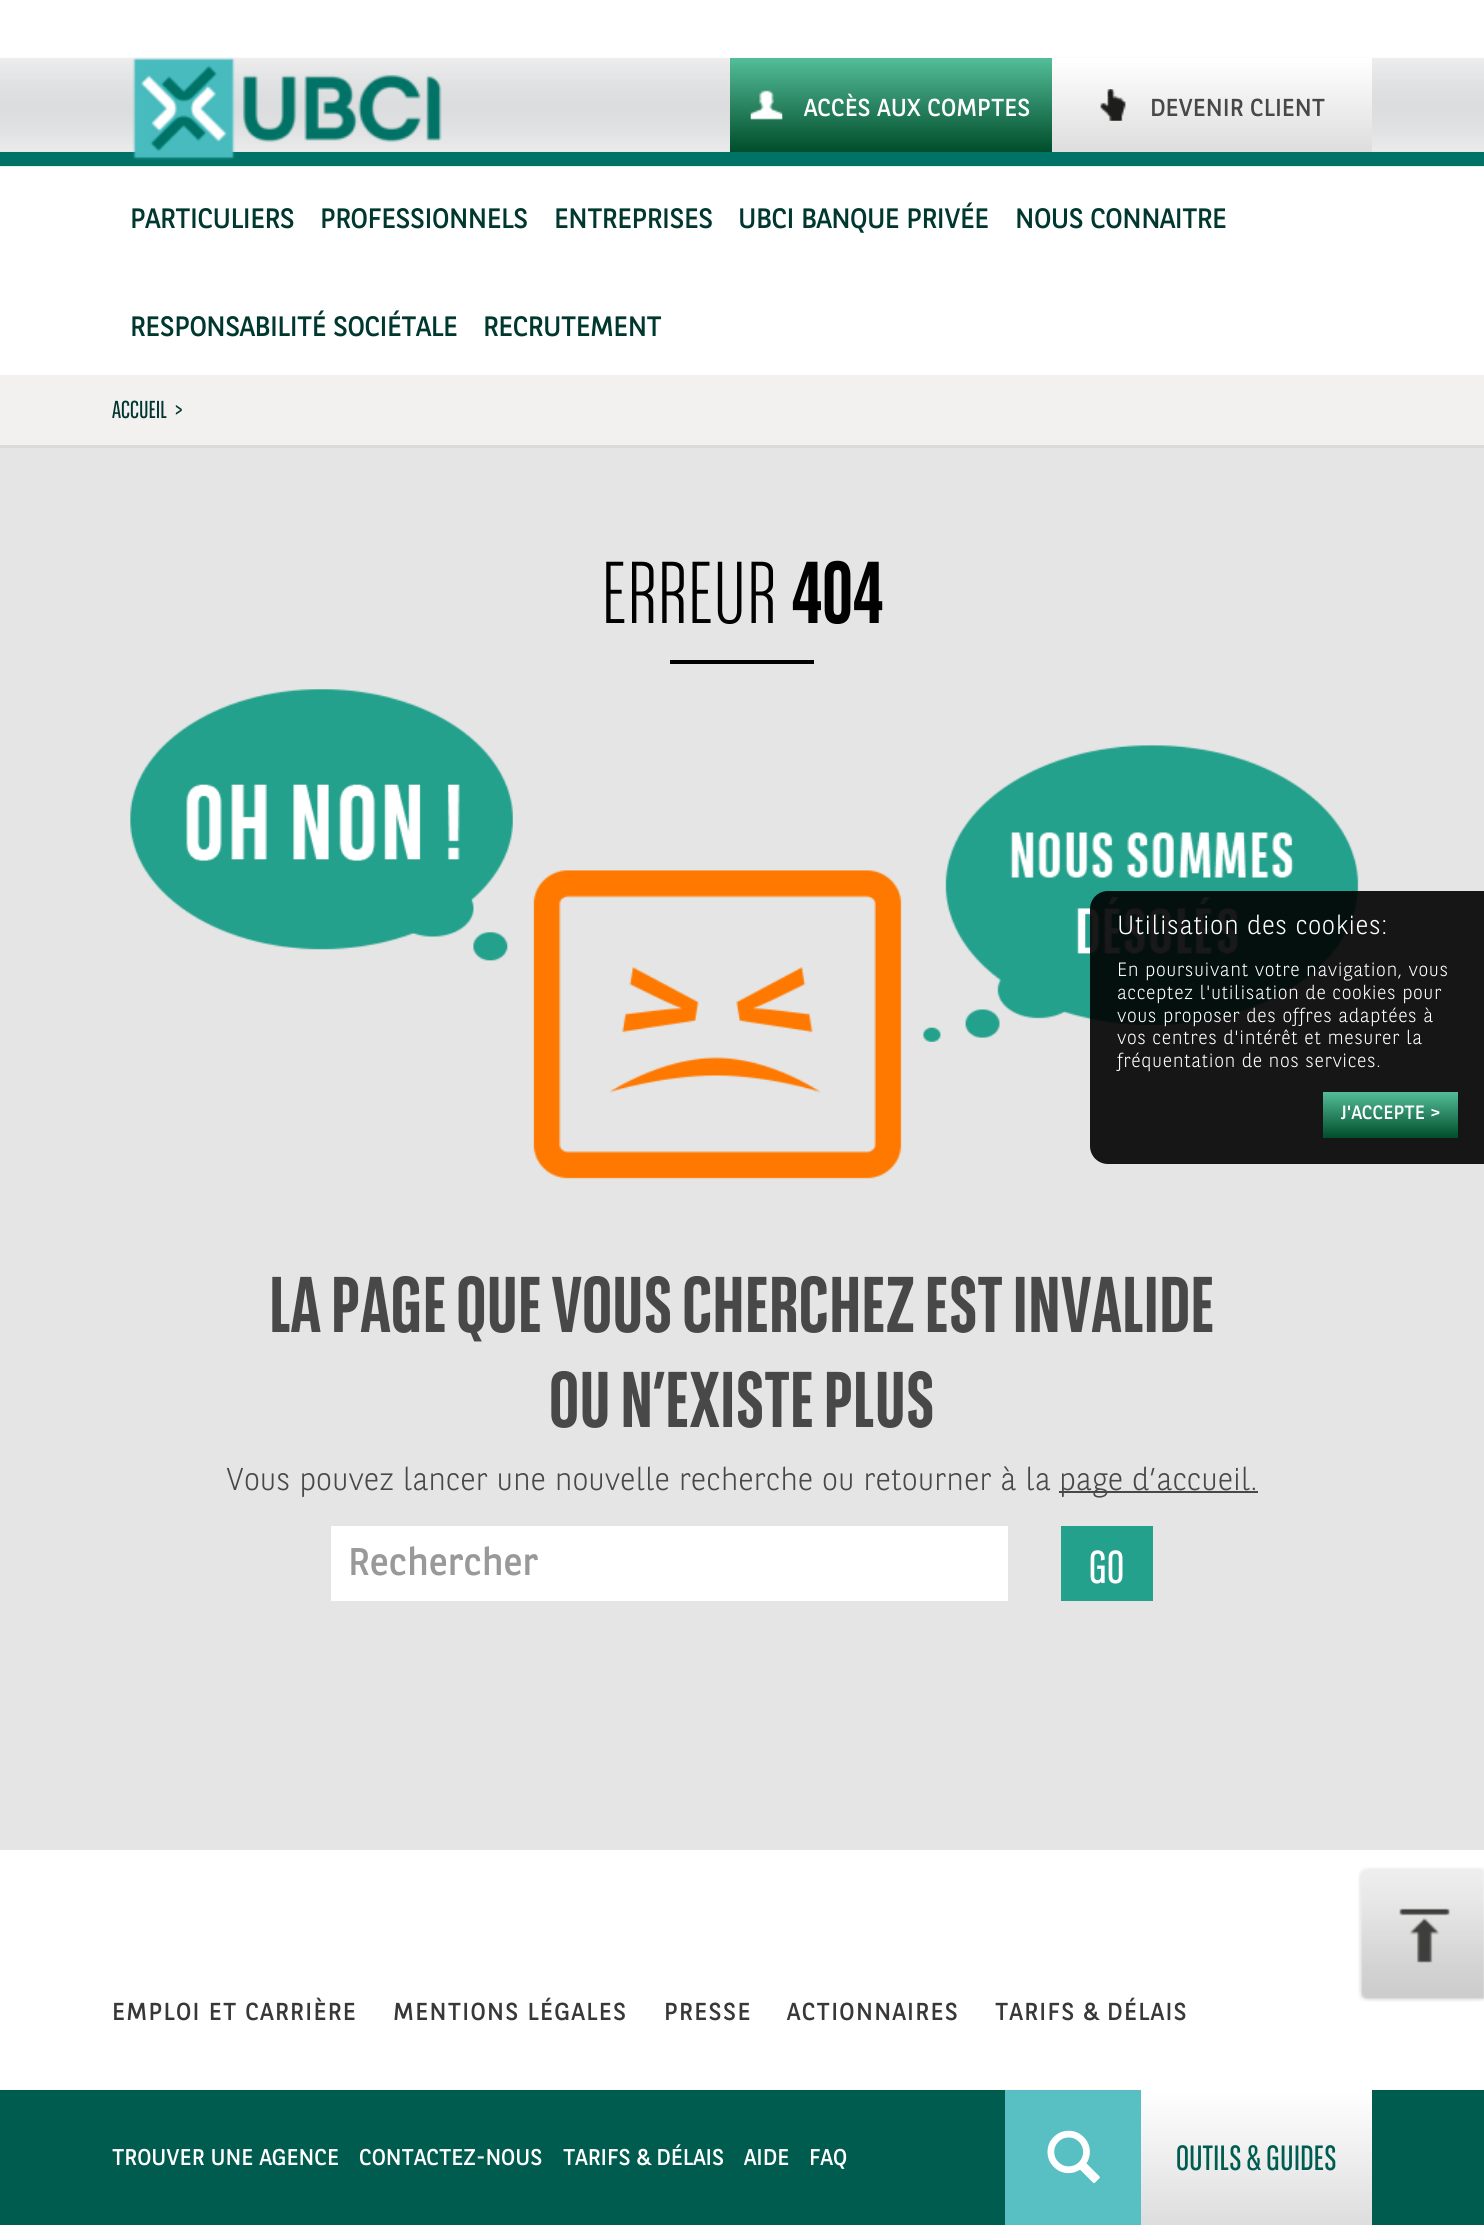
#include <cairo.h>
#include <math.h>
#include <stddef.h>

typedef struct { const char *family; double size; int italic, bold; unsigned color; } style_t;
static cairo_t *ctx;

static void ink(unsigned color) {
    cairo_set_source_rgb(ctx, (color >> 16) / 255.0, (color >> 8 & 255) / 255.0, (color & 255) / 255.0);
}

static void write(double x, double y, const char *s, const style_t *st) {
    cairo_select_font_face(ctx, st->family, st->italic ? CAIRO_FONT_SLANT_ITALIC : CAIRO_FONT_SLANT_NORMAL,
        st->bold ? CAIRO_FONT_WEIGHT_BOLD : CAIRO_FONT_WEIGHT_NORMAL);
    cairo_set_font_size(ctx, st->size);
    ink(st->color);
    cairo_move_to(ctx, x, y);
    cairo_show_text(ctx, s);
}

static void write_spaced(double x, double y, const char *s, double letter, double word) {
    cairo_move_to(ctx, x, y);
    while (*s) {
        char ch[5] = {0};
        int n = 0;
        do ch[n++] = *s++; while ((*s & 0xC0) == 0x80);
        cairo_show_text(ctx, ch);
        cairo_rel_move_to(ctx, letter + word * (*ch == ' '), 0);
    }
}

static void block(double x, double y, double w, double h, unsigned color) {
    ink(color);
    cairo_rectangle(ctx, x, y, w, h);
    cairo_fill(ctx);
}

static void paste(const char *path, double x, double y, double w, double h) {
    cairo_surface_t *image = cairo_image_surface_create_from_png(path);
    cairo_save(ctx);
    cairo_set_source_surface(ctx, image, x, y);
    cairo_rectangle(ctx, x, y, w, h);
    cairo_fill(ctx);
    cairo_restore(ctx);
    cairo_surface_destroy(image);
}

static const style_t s1 = {"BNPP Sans", 24.5, 0, 0, 0xffffff};
static const style_t s2 = {"BNPP Sans", 24.5, 0, 0, 0x484848};
static const style_t s3 = {"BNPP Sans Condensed", 24.5, 0, 0, 0x00372f};
static const style_t s4 = {"BNPP Sans Condensed Light", 87.5, 0, 0, 0x000000};
static const style_t s5 = {"BNPP Sans Condensed", 87.5, 0, 1, 0x000000};
static const style_t s6 = {"BNPP Sans Condensed", 78.75, 0, 1, 0x484848};
static const style_t s7 = {"BNPP Sans Light", 31.5, 0, 0, 0x484848};
static const style_t s8 = {"BNPP Sans", 38.5, 0, 0, 0x999999};
static const style_t s9 = {"BNPP Sans Condensed", 46, 0, 0, 0xffffff};
static const style_t s10 = {"BNPP Sans", 22.75, 0, 0, 0xffffff};
static const style_t s11 = {"BNPP Sans Condensed", 35, 0, 0, 0x005c51};
static const style_t s12 = {"BNPP Sans", 19.25, 0, 0, 0xffffff};

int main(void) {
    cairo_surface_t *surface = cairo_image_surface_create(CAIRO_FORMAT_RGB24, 1484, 2225);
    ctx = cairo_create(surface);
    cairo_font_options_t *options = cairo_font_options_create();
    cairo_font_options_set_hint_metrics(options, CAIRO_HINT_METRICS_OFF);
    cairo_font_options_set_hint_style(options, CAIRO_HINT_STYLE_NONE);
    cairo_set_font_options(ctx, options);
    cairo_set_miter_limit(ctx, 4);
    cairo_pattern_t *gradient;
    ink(0xffffff);
    cairo_paint(ctx);
    paste("pic1.png", 0, 57, 1484, 110);
    block(0, 152, 1484, 14, 0x007266);
    paste("pic2.png", 132, 57, 310, 103);
    gradient = cairo_pattern_create_linear(891, 58, 891, 152);
    cairo_pattern_add_color_stop_rgba(gradient, 0, 0.329, 0.741, 0.6, 1);
    cairo_pattern_add_color_stop_rgba(gradient, 1, 0, 0.302, 0.165, 1);
    cairo_set_source(ctx, gradient);
    cairo_pattern_destroy(gradient);
    cairo_rectangle(ctx, 730, 58, 322, 94);
    cairo_fill(ctx);
    paste("pic3.png", 750, 90, 33, 30);
    write(804, 116, "ACCÈS AUX COMPTES", &s1);
    gradient = cairo_pattern_create_linear(1212, 58, 1212, 152);
    cairo_pattern_add_color_stop_rgba(gradient, 0, 1, 1, 1, 1);
    cairo_pattern_add_color_stop_rgba(gradient, 1, 0.863, 0.867, 0.863, 1);
    cairo_set_source(ctx, gradient);
    cairo_pattern_destroy(gradient);
    cairo_rectangle(ctx, 1052, 58, 320, 94);
    cairo_fill(ctx);
    paste("pic4.png", 1100, 89, 26, 32);
    write(1150, 116, "DEVENIR CLIENT", &s2);
    cairo_set_font_size(ctx, 28);
    ink(0x00372f);
    write_spaced(130, 228, "PARTICULIERS", -0.5, 0);
    write_spaced(320, 228, "PROFESSIONNELS", -0.5, 0);
    write_spaced(554, 228, "ENTREPRISES", -0.5, 0);
    write_spaced(738, 228, "UBCI BANQUE PRIVÉE", -0.5, 0);
    write_spaced(1015, 228, "NOUS CONNAITRE", -0.5, 0);
    write_spaced(130, 336, "RESPONSABILITÉ SOCIÉTALE", -0.5, 0);
    write_spaced(483, 336, "RECRUTEMENT", -0.5, 0);
    block(0, 375, 1484, 70, 0xf3f1f0);
    block(0, 445, 1484, 3, 0xdadada);
    write(112, 418, "ACCUEIL", &s3);
    write(175, 418, ">", &s3);
    block(0, 448, 1484, 1402, 0xe4e5e4);
    write(601, 623, "ERREUR", &s4);
    write(792, 623, "404", &s5);
    block(670, 660, 144, 4, 0x000000);
    paste("pic5.png", 130, 689, 1229, 490);
    write(269, 1332, "LA PAGE QUE VOUS CHERCHEZ EST INVALIDE", &s6);
    write(549, 1427, "OU N’EXISTE PLUS", &s6);
    write(226, 1490, "Vous pouvez lancer une nouvelle recherche ou retourner à la", &s7);
    block(1059, 1491, 199, 2, 0x484848);
    write(1059, 1490, "page d’accueil.", &s7);
    block(331, 1526, 677, 75, 0xffffff);
    write(348, 1575, "Rechercher", &s8);
    block(1061, 1526, 92, 75, 0x24a18c);
    write(1089, 1583, "GO", &s9);
    cairo_select_font_face(ctx, "BNPP Sans", CAIRO_FONT_SLANT_NORMAL, CAIRO_FONT_WEIGHT_NORMAL);
    cairo_set_font_size(ctx, 24.5);
    ink(0x383838);
    write_spaced(112, 2020, "EMPLOI ET CARRIÈRE", 1.3, 0);
    write_spaced(393, 2020, "MENTIONS LÉGALES", 1.3, 0);
    write_spaced(664, 2020, "PRESSE", 1.3, 0);
    write_spaced(787, 2020, "ACTIONNAIRES", 1.3, 0);
    write_spaced(995, 2020, "TARIFS & DÉLAIS", 1.3, 0);
    block(0, 2090, 1484, 135, 0x005c4f);
    write(112, 2165, "TROUVER UNE AGENCE", &s10);
    write(359, 2165, "CONTACTEZ-NOUS", &s10);
    write(563, 2165, "TARIFS & DÉLAIS", &s10);
    write(744, 2165, "AIDE", &s10);
    write(809, 2165, "FAQ", &s10);
    block(1005, 2090, 136, 135, 0x58bfc2);
    paste("pic6.png", 1047, 2130, 53, 54);
    gradient = cairo_pattern_create_linear(1257, 2090, 1257, 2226);
    cairo_pattern_add_color_stop_rgba(gradient, 0, 1, 1, 1, 1);
    cairo_pattern_add_color_stop_rgba(gradient, 1, 0.863, 0.867, 0.863, 1);
    cairo_set_source(ctx, gradient);
    cairo_pattern_destroy(gradient);
    cairo_rectangle(ctx, 1141, 2090, 231, 135);
    cairo_fill(ctx);
    write(1176, 2170, "OUTILS & GUIDES", &s11);
    cairo_set_source_rgba(ctx, 0, 0, 0, 0.9);
    cairo_new_path(ctx);
    cairo_move_to(ctx, 1108, 891);
    cairo_line_to(ctx, 1484, 891);
    cairo_line_to(ctx, 1484, 1164);
    cairo_line_to(ctx, 1108, 1164);
    cairo_curve_to(ctx, 1098, 1164, 1090, 1156, 1090, 1146);
    cairo_line_to(ctx, 1090, 909);
    cairo_curve_to(ctx, 1090, 899, 1098, 891, 1108, 891);
    cairo_close_path(ctx);
    cairo_fill(ctx);
    cairo_select_font_face(ctx, "BNPP Sans Light", CAIRO_FONT_SLANT_NORMAL, CAIRO_FONT_WEIGHT_NORMAL);
    cairo_set_font_size(ctx, 26.25);
    ink(0xffffff);
    write_spaced(1117, 934, "Utilisation des cookies:", 0.55, 0);
    cairo_set_font_size(ctx, 19.25);
    write_spaced(1117, 976, "En poursuivant votre navigation, vous", 0.55, 0);
    write_spaced(1117, 999, "acceptez l'utilisation de cookies pour", 0.55, 0);
    write_spaced(1117, 1022, "vous proposer des offres adaptées à", 0.55, 0);
    write_spaced(1117, 1044, "vos centres d'intérêt et mesurer la", 0.55, 0);
    write_spaced(1117, 1067, "fréquentation de nos services.", 0.55, 0);
    gradient = cairo_pattern_create_linear(1390, 1092, 1390, 1138);
    cairo_pattern_add_color_stop_rgba(gradient, 0, 0.329, 0.741, 0.6, 1);
    cairo_pattern_add_color_stop_rgba(gradient, 1, 0, 0.302, 0.165, 1);
    cairo_set_source(ctx, gradient);
    cairo_pattern_destroy(gradient);
    cairo_rectangle(ctx, 1323, 1092, 135, 46);
    cairo_fill(ctx);
    write(1341, 1119, "J'ACCEPTE >", &s12);
    paste("pic7.png", 1358, 1867, 126, 135);
    cairo_surface_write_to_png(surface, "screenshot.png");
    cairo_font_options_destroy(options);
    cairo_destroy(ctx);
    cairo_surface_destroy(surface);
    return 0;
}
